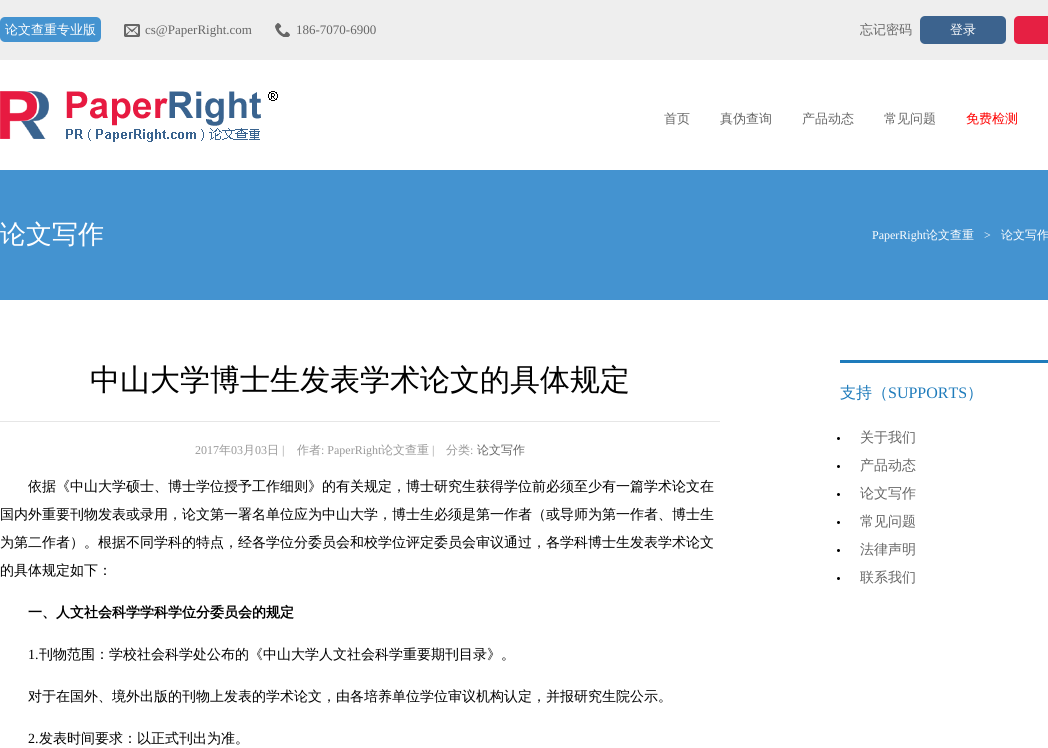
#include <cairo.h>
#include <math.h>
#include <stddef.h>

typedef struct { const char *family; double size; int italic, bold; unsigned color; } style_t;
static cairo_t *ctx;

static void ink(unsigned color) {
    cairo_set_source_rgb(ctx, (color >> 16) / 255.0, (color >> 8 & 255) / 255.0, (color & 255) / 255.0);
}

static void write(double x, double y, const char *s, const style_t *st) {
    cairo_select_font_face(ctx, st->family, st->italic ? CAIRO_FONT_SLANT_ITALIC : CAIRO_FONT_SLANT_NORMAL,
        st->bold ? CAIRO_FONT_WEIGHT_BOLD : CAIRO_FONT_WEIGHT_NORMAL);
    cairo_set_font_size(ctx, st->size);
    ink(st->color);
    cairo_move_to(ctx, x, y);
    cairo_show_text(ctx, s);
}

static void block(double x, double y, double w, double h, unsigned color) {
    ink(color);
    cairo_rectangle(ctx, x, y, w, h);
    cairo_fill(ctx);
}

static void round_path(double x, double y, double w, double h, double r) {
    cairo_new_sub_path(ctx);
    cairo_arc(ctx, x + w - r, y + h - r, r, 0, M_PI / 2);
    cairo_arc(ctx, x + r, y + h - r, r, M_PI / 2, M_PI);
    cairo_arc(ctx, x + r, y + r, r, M_PI, 1.5 * M_PI);
    cairo_arc(ctx, x + w - r, y + r, r, 1.5 * M_PI, 2 * M_PI);
    cairo_close_path(ctx);
}

static void paste(const char *path, double x, double y, double w, double h) {
    cairo_surface_t *image = cairo_image_surface_create_from_png(path);
    cairo_save(ctx);
    cairo_set_source_surface(ctx, image, x, y);
    cairo_rectangle(ctx, x, y, w, h);
    cairo_fill(ctx);
    cairo_restore(ctx);
    cairo_surface_destroy(image);
}

static const style_t s1 = {"WenQuanYi Zen Hei Medium", 13, 0, 0, 0xffffff};
static const style_t s2 = {"Liberation Serif", 13, 0, 0, 0x666666};
static const style_t s3 = {"WenQuanYi Zen Hei Medium", 13, 0, 0, 0x666666};
static const style_t s4 = {"WenQuanYi Zen Hei Medium", 13, 0, 0, 0xff0000};
static const style_t s5 = {"WenQuanYi Zen Hei Medium", 26, 0, 0, 0xffffff};
static const style_t s6 = {"Liberation Serif", 12, 0, 0, 0xffffff};
static const style_t s7 = {"WenQuanYi Zen Hei Medium", 12, 0, 0, 0xffffff};
static const style_t s8 = {"WenQuanYi Zen Hei Medium", 30, 0, 0, 0x000000};
static const style_t s9 = {"Liberation Serif", 12, 0, 0, 0x999999};
static const style_t s10 = {"WenQuanYi Zen Hei Medium", 12, 0, 0, 0x999999};
static const style_t s11 = {"WenQuanYi Zen Hei Medium", 12, 0, 0, 0x666666};
static const style_t s12 = {"WenQuanYi Zen Hei Medium", 14, 0, 0, 0x000000};
static const style_t s13 = {"WenQuanYi Zen Hei", 14, 0, 1, 0x000000};
static const style_t s14 = {"Liberation Serif", 14, 0, 0, 0x000000};
static const style_t s15 = {"WenQuanYi Zen Hei Medium", 16, 0, 0, 0x1e7bbb};
static const style_t s16 = {"Liberation Serif", 16, 0, 0, 0x1e7bbb};
static const style_t s17 = {"WenQuanYi Zen Hei Medium", 14, 0, 0, 0x666666};

int main(void) {
    cairo_surface_t *surface = cairo_image_surface_create(CAIRO_FORMAT_RGB24, 1048, 748);
    ctx = cairo_create(surface);
    cairo_font_options_t *options = cairo_font_options_create();
    cairo_font_options_set_hint_metrics(options, CAIRO_HINT_METRICS_OFF);
    cairo_font_options_set_hint_style(options, CAIRO_HINT_STYLE_NONE);
    cairo_set_font_options(ctx, options);
    cairo_set_miter_limit(ctx, 4);
    ink(0xffffff);
    cairo_paint(ctx);
    block(0, 0, 1048, 60, 0xeeeeee);
    ink(0x4493d0);
    round_path(0, 17, 101, 25, 5);
    cairo_fill(ctx);
    write(5, 34, "论文查重专业版", &s1);
    paste("pic1.png", 124, 24, 16, 13);
    write(145, 34, "cs@PaperRight.com", &s2);
    paste("pic2.png", 275, 23, 15, 14);
    write(296, 34, "186-7070-6900", &s2);
    write(860, 34, "忘记密码", &s3);
    ink(0x3c638e);
    round_path(920, 16, 86, 28, 5);
    cairo_fill(ctx);
    write(950, 34, "登录", &s1);
    ink(0xe62043);
    round_path(1014, 16, 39, 28, 5);
    cairo_fill(ctx);
    paste("pic3.png", 0, 91, 278, 51);
    write(664, 123, "首页", &s3);
    write(720, 123, "真伪查询", &s3);
    write(802, 123, "产品动态", &s3);
    write(884, 123, "常见问题", &s3);
    write(966, 123, "免费检测", &s4);
    block(0, 170, 1048, 130, 0x4493d0);
    write(0, 243, "论文写作", &s5);
    write(872, 239, "PaperRight", &s6);
    write(926, 239, "论文查重", &s7);
    write(984, 239, ">", &s6);
    write(1001, 239, "论文写作", &s7);
    block(0, 421, 720, 1, 0xe6e6e6);
    write(90, 390, "中山大学博士生发表学术论文的具体规定", &s8);
    write(195, 454, "2017", &s9);
    write(219, 454, "年", &s10);
    write(231, 454, "03", &s9);
    write(243, 454, "月", &s10);
    write(255, 454, "03", &s9);
    write(267, 454, "日", &s10);
    write(282, 454, "|", &s9);
    write(297, 454, "作者", &s10);
    write(321, 454, ": PaperRight", &s9);
    write(381, 454, "论文查重", &s10);
    write(432, 454, "|", &s9);
    write(446, 454, "分类", &s10);
    write(470, 454, ":", &s9);
    write(477, 454, "论文写作", &s11);
    write(28, 491, "依据《中山大学硕士、博士学位授予工作细则》的有关规定，博士研究生获得学位前必须至少有一篇学术论文在", &s12);
    write(0, 519, "国内外重要刊物发表或录用，论文第一署名单位应为中山大学，博士生必须是第一作者（或导师为第一作者、博士生", &s12);
    write(0, 547, "为第二作者）。根据不同学科的特点，经各学位分委员会和校学位评定委员会审议通过，各学科博士生发表学术论文", &s12);
    write(0, 575, "的具体规定如下：", &s12);
    write(28, 617, "一、人文社会科学学科学位分委员会的规定", &s13);
    write(28, 659, "1.", &s14);
    write(39, 659, "刊物范围：学校社会科学处公布的《中山大学人文社会科学重要期刊目录》。", &s12);
    write(28, 701, "对于在国外、境外出版的刊物上发表的学术论文，由各培养单位学位审议机构认定，并报研究生院公示。", &s12);
    write(28, 743, "2.", &s14);
    write(39, 743, "发表时间要求：以正式刊出为准。", &s12);
    block(840, 360, 208, 3, 0x1e7bbb);
    write(840, 398, "支持（", &s15);
    write(888, 398, "SUPPORTS", &s16);
    write(967, 398, "）", &s15);
    ink(0x000000);
    cairo_new_path(ctx);
    cairo_arc(ctx, 838.5, 438.5, 1.5, 0, 2 * M_PI);
    cairo_fill(ctx);
    write(860, 442, "关于我们", &s17);
    ink(0x000000);
    cairo_new_path(ctx);
    cairo_arc(ctx, 838.5, 466.5, 1.5, 0, 2 * M_PI);
    cairo_fill(ctx);
    write(860, 470, "产品动态", &s17);
    ink(0x000000);
    cairo_new_path(ctx);
    cairo_arc(ctx, 838.5, 494.5, 1.5, 0, 2 * M_PI);
    cairo_fill(ctx);
    write(860, 498, "论文写作", &s17);
    ink(0x000000);
    cairo_new_path(ctx);
    cairo_arc(ctx, 838.5, 522.5, 1.5, 0, 2 * M_PI);
    cairo_fill(ctx);
    write(860, 526, "常见问题", &s17);
    ink(0x000000);
    cairo_new_path(ctx);
    cairo_arc(ctx, 838.5, 550.5, 1.5, 0, 2 * M_PI);
    cairo_fill(ctx);
    write(860, 554, "法律声明", &s17);
    ink(0x000000);
    cairo_new_path(ctx);
    cairo_arc(ctx, 838.5, 578.5, 1.5, 0, 2 * M_PI);
    cairo_fill(ctx);
    write(860, 582, "联系我们", &s17);
    cairo_surface_write_to_png(surface, "screenshot.png");
    cairo_font_options_destroy(options);
    cairo_destroy(ctx);
    cairo_surface_destroy(surface);
    return 0;
}
